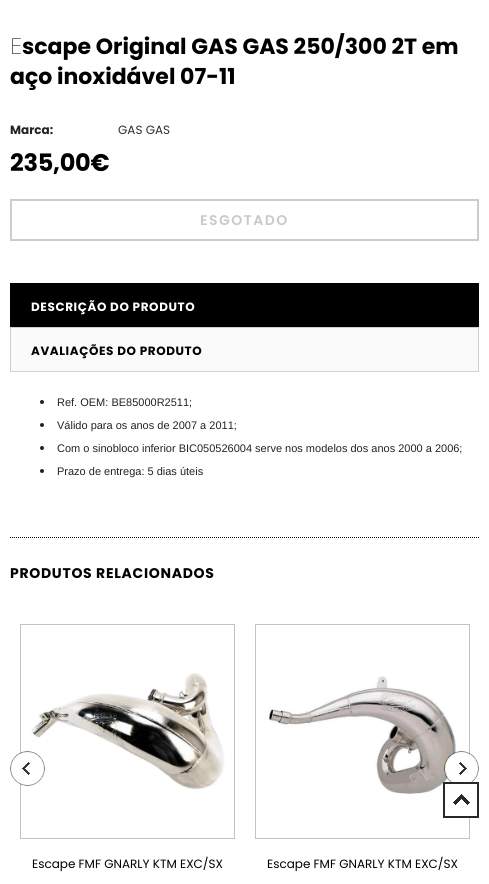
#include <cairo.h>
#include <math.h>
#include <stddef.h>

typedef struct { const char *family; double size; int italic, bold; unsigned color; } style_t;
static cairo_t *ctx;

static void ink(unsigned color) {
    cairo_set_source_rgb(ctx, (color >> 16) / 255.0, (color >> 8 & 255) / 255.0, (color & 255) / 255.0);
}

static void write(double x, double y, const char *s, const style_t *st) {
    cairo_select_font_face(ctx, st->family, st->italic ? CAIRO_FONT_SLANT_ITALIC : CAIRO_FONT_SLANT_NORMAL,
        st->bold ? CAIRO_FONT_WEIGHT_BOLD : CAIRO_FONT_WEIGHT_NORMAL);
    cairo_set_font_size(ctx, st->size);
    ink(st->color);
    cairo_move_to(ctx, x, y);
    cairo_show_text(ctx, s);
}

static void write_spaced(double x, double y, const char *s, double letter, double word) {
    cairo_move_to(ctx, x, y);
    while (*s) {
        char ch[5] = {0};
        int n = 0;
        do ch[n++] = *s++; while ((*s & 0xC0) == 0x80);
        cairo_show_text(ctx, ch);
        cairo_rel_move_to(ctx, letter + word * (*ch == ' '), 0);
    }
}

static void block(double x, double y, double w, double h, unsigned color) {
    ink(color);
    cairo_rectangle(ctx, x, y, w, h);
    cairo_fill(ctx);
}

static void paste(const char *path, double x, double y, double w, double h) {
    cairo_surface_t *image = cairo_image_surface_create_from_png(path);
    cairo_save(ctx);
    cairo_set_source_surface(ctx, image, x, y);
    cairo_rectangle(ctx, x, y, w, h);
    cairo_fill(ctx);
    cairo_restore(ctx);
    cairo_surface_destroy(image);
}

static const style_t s1 = {"Noto Sans Thin", 22, 0, 0, 0x000000};
static const style_t s2 = {"Poppins", 22, 0, 1, 0x000000};
static const style_t s3 = {"Poppins", 12, 0, 1, 0x232323};
static const style_t s4 = {"Poppins", 12, 0, 0, 0x2d2d2d};
static const style_t s5 = {"Liberation Sans", 11, 0, 0, 0x232323};
static const style_t s6 = {"Poppins", 12, 0, 0, 0x000000};

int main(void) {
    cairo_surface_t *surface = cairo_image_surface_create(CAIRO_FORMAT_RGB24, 489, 884);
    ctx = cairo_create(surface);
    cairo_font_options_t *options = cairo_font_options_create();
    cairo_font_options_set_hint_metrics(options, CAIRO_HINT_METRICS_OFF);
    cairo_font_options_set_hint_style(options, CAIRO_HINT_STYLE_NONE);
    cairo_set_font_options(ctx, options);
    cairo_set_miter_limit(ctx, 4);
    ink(0xffffff);
    cairo_paint(ctx);
    write(10, 54, "E", &s1);
    write(22, 54, "scape Original GAS GAS 250/300 2T em", &s2);
    write(10, 84, "aço inoxidável 07-11", &s2);
    write(10, 134, "Marca:", &s3);
    write(118, 134, "GAS GAS", &s4);
    cairo_select_font_face(ctx, "Poppins", CAIRO_FONT_SLANT_NORMAL, CAIRO_FONT_WEIGHT_BOLD);
    cairo_set_font_size(ctx, 24);
    ink(0x000000);
    write_spaced(10, 171, "235,00€", -0.25, 0);
    cairo_rectangle(ctx, 11, 200, 467, 40);
    ink(0xcccccc);
    cairo_stroke(ctx);
    cairo_select_font_face(ctx, "Poppins SemiBold", CAIRO_FONT_SLANT_NORMAL, CAIRO_FONT_WEIGHT_NORMAL);
    cairo_set_font_size(ctx, 14);
    ink(0xc9c9c9);
    write_spaced(200, 225, "ESGOTADO", 1.5, 0);
    block(10, 371, 469, 1, 0xd0d0d0);
    block(10, 283, 469, 44, 0x000000);
    cairo_select_font_face(ctx, "Poppins", CAIRO_FONT_SLANT_NORMAL, CAIRO_FONT_WEIGHT_BOLD);
    cairo_set_font_size(ctx, 12);
    ink(0xffffff);
    write_spaced(31, 311, "DESCRIÇÃO DO PRODUTO", 0.6, 0);
    block(11, 328, 467, 43, 0xfafafa);
    block(10, 327, 469, 1, 0xd0d0d0);
    block(478, 327, 1, 44, 0xd0d0d0);
    block(10, 327, 1, 44, 0xd0d0d0);
    ink(0x000000);
    write_spaced(31, 355, "AVALIAÇÕES DO PRODUTO", 0.6, 0);
    ink(0x232323);
    cairo_new_path(ctx);
    cairo_arc(ctx, 42, 402, 2, 0, 2 * M_PI);
    cairo_fill(ctx);
    write(57, 406, "Ref. OEM: BE85000R2511;", &s5);
    cairo_new_path(ctx);
    cairo_arc(ctx, 42, 425, 2, 0, 2 * M_PI);
    cairo_fill(ctx);
    write(57, 429, "Válido para os anos de 2007 a 2011;", &s5);
    cairo_new_path(ctx);
    cairo_arc(ctx, 42, 448, 2, 0, 2 * M_PI);
    cairo_fill(ctx);
    write(57, 452, "Com o sinobloco inferior BIC050526004 serve nos modelos dos anos 2000 a 2006;", &s5);
    cairo_new_path(ctx);
    cairo_arc(ctx, 42, 471, 2, 0, 2 * M_PI);
    cairo_fill(ctx);
    write(57, 475, "Prazo de entrega: 5 dias úteis", &s5);
    cairo_new_path(ctx);
    cairo_move_to(ctx, 10, 537.5);
    cairo_line_to(ctx, 479, 537.5);
    ink(0x000000);
    cairo_set_line_width(ctx, 1);
    cairo_set_dash(ctx, (double[]){1, 1}, 2, 0);
    cairo_stroke(ctx);
    cairo_select_font_face(ctx, "Poppins", CAIRO_FONT_SLANT_NORMAL, CAIRO_FONT_WEIGHT_BOLD);
    cairo_set_font_size(ctx, 14);
    write_spaced(10, 578, "PRODUTOS RELACIONADOS", 0.7, 0);
    cairo_rectangle(ctx, 20.5, 624.5, 214, 214);
    ink(0xc3c3c3);
    cairo_set_dash(ctx, NULL, 0, 0);
    cairo_stroke(ctx);
    paste("pic3.png", 31, 673, 194, 117);
    paste("pic1.png", 10, 751, 35, 35);
    cairo_rectangle(ctx, 255.5, 624.5, 214, 214);
    cairo_stroke(ctx);
    paste("pic4.png", 269, 676, 187, 118);
    paste("pic2.png", 444, 751, 35, 31);
    write(32, 868, "Escape FMF GNARLY KTM EXC/SX", &s6);
    write(267, 868, "Escape FMF GNARLY KTM EXC/SX", &s6);
    block(469, 784, 1, 32, 0xffffff);
    paste("pic5.png", 443, 782, 36, 36);
    cairo_surface_write_to_png(surface, "screenshot.png");
    cairo_font_options_destroy(options);
    cairo_destroy(ctx);
    cairo_surface_destroy(surface);
    return 0;
}
